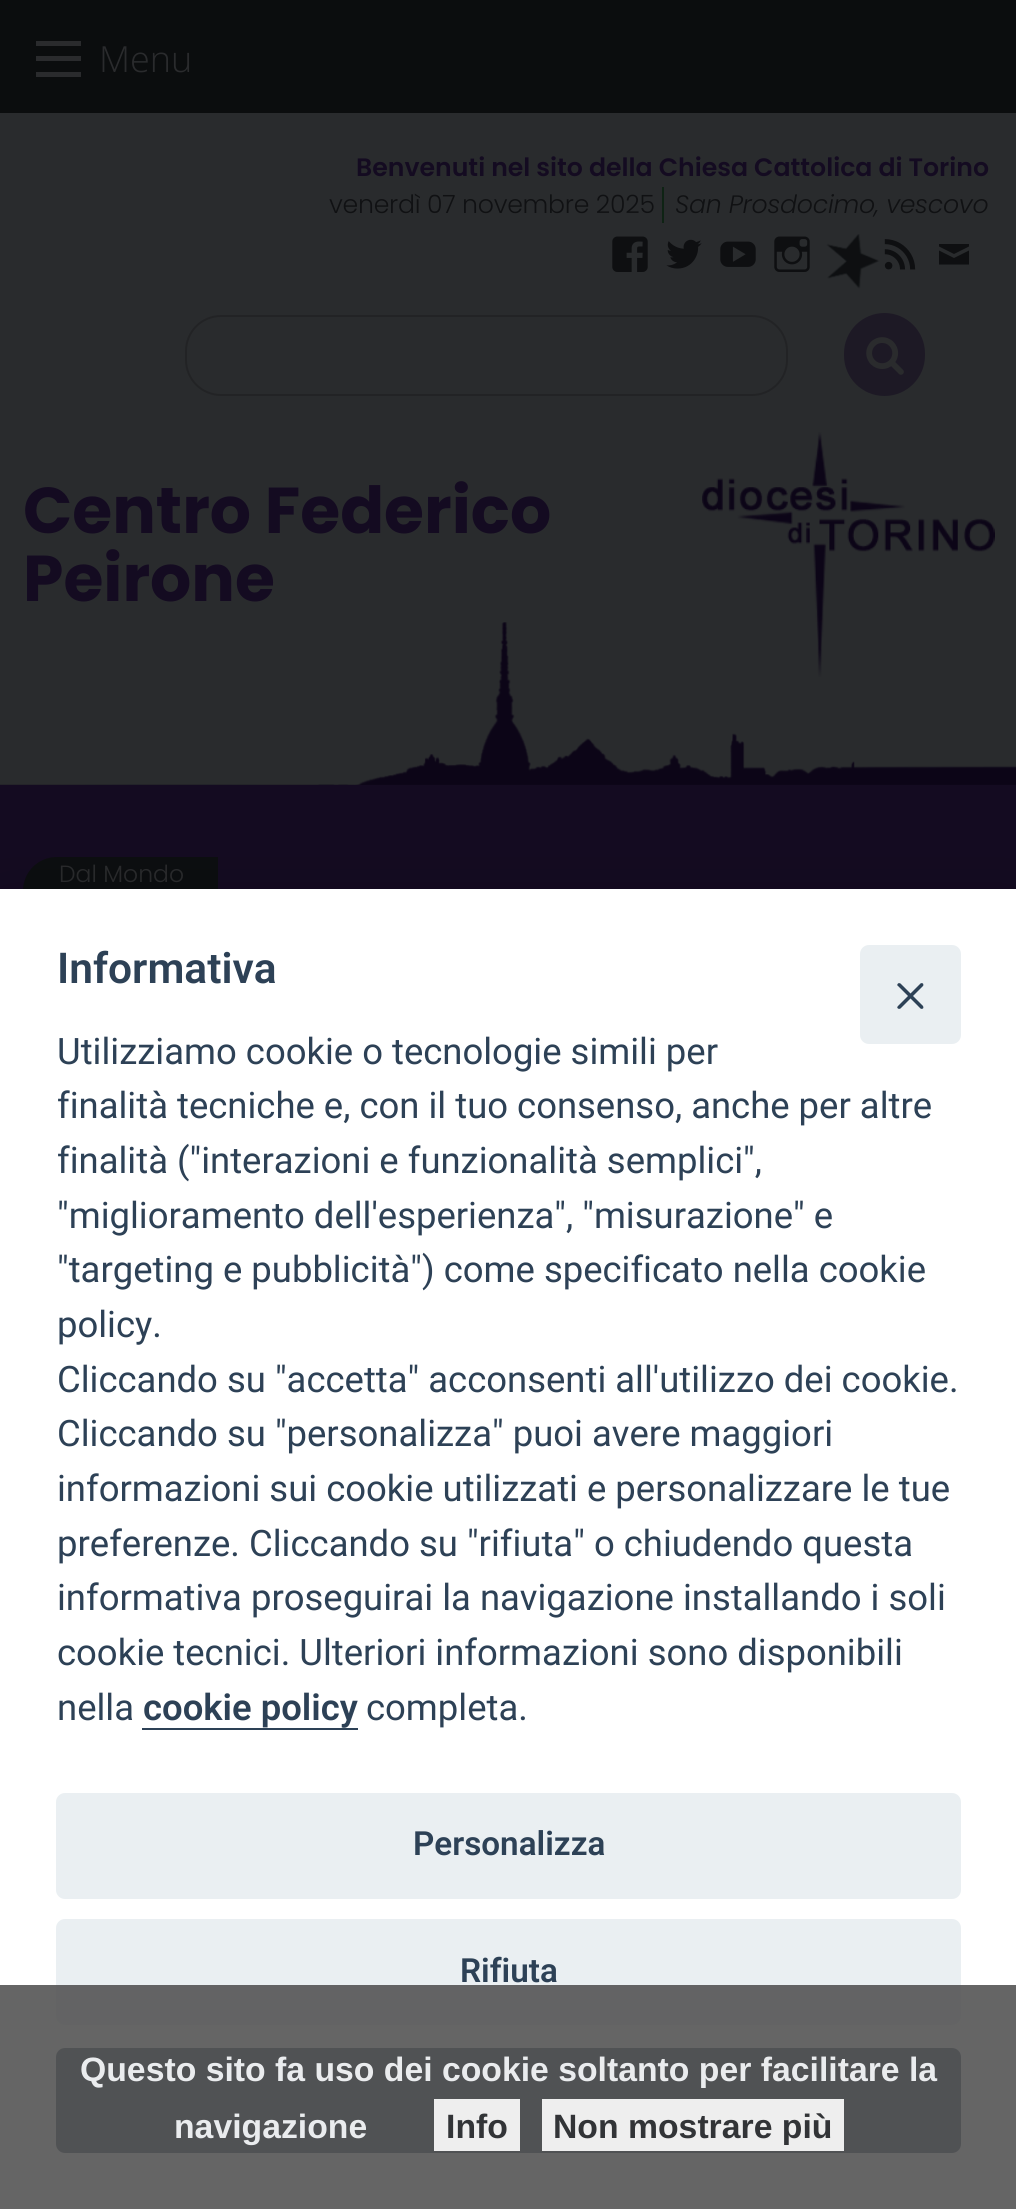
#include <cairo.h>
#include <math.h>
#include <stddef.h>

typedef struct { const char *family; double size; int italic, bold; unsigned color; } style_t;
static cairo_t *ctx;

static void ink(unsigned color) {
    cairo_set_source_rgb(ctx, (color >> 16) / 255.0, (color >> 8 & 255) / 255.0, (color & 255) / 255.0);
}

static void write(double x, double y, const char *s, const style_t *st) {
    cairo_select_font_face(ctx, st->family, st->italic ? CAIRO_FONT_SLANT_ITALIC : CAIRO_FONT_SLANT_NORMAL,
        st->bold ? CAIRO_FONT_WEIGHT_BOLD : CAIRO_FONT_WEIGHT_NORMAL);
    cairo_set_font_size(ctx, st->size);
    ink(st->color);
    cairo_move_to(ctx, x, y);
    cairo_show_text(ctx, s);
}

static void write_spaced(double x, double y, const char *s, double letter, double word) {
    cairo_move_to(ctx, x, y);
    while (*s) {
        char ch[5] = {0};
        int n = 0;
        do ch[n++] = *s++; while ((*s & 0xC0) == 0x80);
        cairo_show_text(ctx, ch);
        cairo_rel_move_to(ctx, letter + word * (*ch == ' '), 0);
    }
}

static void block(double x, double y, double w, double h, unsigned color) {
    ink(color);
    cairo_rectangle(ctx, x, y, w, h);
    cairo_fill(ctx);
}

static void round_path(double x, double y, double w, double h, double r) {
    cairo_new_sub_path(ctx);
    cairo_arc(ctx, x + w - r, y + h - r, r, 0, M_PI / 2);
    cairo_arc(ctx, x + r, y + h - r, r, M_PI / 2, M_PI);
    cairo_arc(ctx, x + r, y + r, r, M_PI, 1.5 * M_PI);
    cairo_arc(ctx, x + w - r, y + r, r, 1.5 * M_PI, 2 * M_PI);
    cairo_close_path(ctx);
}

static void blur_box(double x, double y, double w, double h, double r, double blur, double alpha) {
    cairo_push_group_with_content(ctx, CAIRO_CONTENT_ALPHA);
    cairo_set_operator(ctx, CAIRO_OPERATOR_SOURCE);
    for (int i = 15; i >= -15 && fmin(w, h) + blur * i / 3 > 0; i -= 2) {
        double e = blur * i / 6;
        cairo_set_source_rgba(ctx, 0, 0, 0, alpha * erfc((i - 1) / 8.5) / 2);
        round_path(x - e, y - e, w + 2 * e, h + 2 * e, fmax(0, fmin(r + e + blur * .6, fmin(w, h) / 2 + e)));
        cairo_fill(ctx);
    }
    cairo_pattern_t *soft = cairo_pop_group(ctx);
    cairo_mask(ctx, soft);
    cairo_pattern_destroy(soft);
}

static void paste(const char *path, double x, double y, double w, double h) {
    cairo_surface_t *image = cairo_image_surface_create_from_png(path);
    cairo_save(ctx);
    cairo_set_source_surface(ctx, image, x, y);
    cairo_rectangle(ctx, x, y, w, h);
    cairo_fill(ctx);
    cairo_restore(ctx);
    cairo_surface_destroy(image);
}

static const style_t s1 = {"Open Sans Light", 36, 0, 0, 0x2a2b2d};
static const style_t s2 = {"Poppins SemiBold", 25.2, 0, 0, 0x140b21};
static const style_t s3 = {"Poppins", 64.75, 0, 1, 0x140b21};
static const style_t s4 = {"Poppins Light", 23.5, 0, 0, 0x2a2b2d};
static const style_t s5 = {"Roboto SemiBold", 42.5, 0, 0, 0x2d4156};
static const style_t s6 = {"Roboto", 36.45, 0, 0, 0x2d4156};
static const style_t s7 = {"Roboto SemiBold", 36.45, 0, 0, 0x2d4156};
static const style_t s8 = {"Roboto SemiBold", 33.25, 0, 0, 0x2d4156};
static const style_t s9 = {"Liberation Sans", 33.75, 0, 1, 0xeaecee};
static const style_t s10 = {"Liberation Sans", 33.75, 0, 1, 0x323437};

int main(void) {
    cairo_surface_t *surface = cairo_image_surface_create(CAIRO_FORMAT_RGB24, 1016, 2209);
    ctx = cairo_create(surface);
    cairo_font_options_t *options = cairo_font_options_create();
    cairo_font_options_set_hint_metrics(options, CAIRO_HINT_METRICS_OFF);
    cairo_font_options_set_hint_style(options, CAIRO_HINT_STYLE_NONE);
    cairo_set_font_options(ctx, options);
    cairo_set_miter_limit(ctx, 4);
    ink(0x292b2d);
    cairo_paint(ctx);
    block(0, 0, 1016, 113, 0x0b0d0e);
    block(36, 72, 45, 5, 0x2a2b2d);
    block(36, 56, 45, 5, 0x2a2b2d);
    block(36, 41, 45, 5, 0x2a2b2d);
    write(99, 72, "Menu", &s1);
    paste("pic1.png", 0, 622, 1016, 163);
    write(356, 176, "Benvenuti nel sito della Chiesa Cattolica di Torino", &s2);
    cairo_select_font_face(ctx, "Poppins Light", CAIRO_FONT_SLANT_NORMAL, CAIRO_FONT_WEIGHT_NORMAL);
    ink(0x101113);
    write_spaced(329, 213, "venerdì 07 novembre 2025", -0.25, 0);
    cairo_select_font_face(ctx, "Poppins Light", CAIRO_FONT_SLANT_ITALIC, CAIRO_FONT_WEIGHT_NORMAL);
    write_spaced(675, 213, "San Prosdocimo, vescovo", -0.25, 0);
    block(662, 187, 2, 36, 0x0e2314);
    paste("pic2.png", 612, 236, 36, 36);
    paste("pic3.png", 666, 239, 36, 30);
    paste("pic4.png", 720, 241, 36, 26);
    paste("pic5.png", 774, 236, 36, 36);
    paste("pic6.png", 826, 234, 54, 55);
    paste("pic7.png", 884, 239, 32, 31);
    ink(0x0e0f11);
    cairo_new_path(ctx);
    cairo_move_to(ctx, 939, 244);
    cairo_line_to(ctx, 969, 244);
    cairo_line_to(ctx, 969, 246.5);
    cairo_line_to(ctx, 954, 254);
    cairo_line_to(ctx, 939, 246.5);
    cairo_close_path(ctx);
    cairo_move_to(ctx, 939, 250.5);
    cairo_line_to(ctx, 954, 258);
    cairo_line_to(ctx, 969, 250.5);
    cairo_line_to(ctx, 969, 264.5);
    cairo_line_to(ctx, 939, 264.5);
    cairo_close_path(ctx);
    cairo_fill(ctx);
    round_path(186, 316, 601, 79, 35);
    ink(0x222325);
    cairo_stroke(ctx);
    ink(0x1d1925);
    round_path(844, 313, 81, 83, 40.5);
    cairo_fill(ctx);
    paste("pic8.png", 866, 337, 38, 38);
    write(23, 533, "Centro Federico", &s3);
    write(23, 601, "Peirone", &s3);
    paste("pic9.png", 702, 432, 293, 245);
    block(0, 785, 1016, 104, 0x140b21);
    ink(0x0c0e10);
    cairo_new_path(ctx);
    cairo_move_to(ctx, 57, 857);
    cairo_line_to(ctx, 218, 857);
    cairo_line_to(ctx, 218, 891);
    cairo_line_to(ctx, 23, 891);
    cairo_curve_to(ctx, 23, 872, 38, 857, 57, 857);
    cairo_close_path(ctx);
    cairo_fill(ctx);
    write(59, 882, "Dal Mondo", &s4);
    ink(0x020203);
    blur_box(0, 914, 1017, 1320, 0, 38, 0.28);
    block(0, 889, 1016, 1320, 0xffffff);
    ink(0xeaeff2);
    round_path(860, 945, 101, 99, 9);
    cairo_fill(ctx);
    ink(0x2d4156);
    cairo_new_path(ctx);
    cairo_move_to(ctx, 923, 983.5);
    cairo_curve_to(ctx, 923.5, 984.5, 923.5, 985.5, 923, 986);
    cairo_line_to(ctx, 900.5, 1008.5);
    cairo_curve_to(ctx, 899.5, 1009, 898.5, 1009, 898, 1008.5);
    cairo_curve_to(ctx, 897, 1008, 897, 1007, 898, 1006);
    cairo_line_to(ctx, 920.5, 983.5);
    cairo_curve_to(ctx, 921, 983, 922, 983, 923, 983.5);
    cairo_close_path(ctx);
    cairo_fill(ctx);
    cairo_new_path(ctx);
    cairo_move_to(ctx, 898, 983.5);
    cairo_curve_to(ctx, 898.5, 983, 899.5, 983, 900.5, 983.5);
    cairo_line_to(ctx, 923, 1006);
    cairo_curve_to(ctx, 923.5, 1007, 923.5, 1008, 923, 1008.5);
    cairo_curve_to(ctx, 922, 1009, 921, 1009, 920.5, 1008.5);
    cairo_line_to(ctx, 898, 986);
    cairo_curve_to(ctx, 897, 985.5, 897, 984.5, 898, 983.5);
    cairo_close_path(ctx);
    cairo_fill(ctx);
    write(57, 983, "Informativa", &s5);
    write(57, 1064, "Utilizziamo cookie o tecnologie simili per", &s6);
    write(57, 1118, "finalità tecniche e, con il tuo consenso, anche per altre", &s6);
    write(57, 1173, "finalità (\"interazioni e funzionalità semplici\",", &s6);
    write(57, 1228, "\"miglioramento dell'esperienza\", \"misurazione\" e", &s6);
    write(57, 1282, "\"targeting e pubblicità\") come specificato nella cookie", &s6);
    write(57, 1337, "policy.", &s6);
    write(57, 1392, "Cliccando su \"accetta\" acconsenti all'utilizzo dei cookie.", &s6);
    write(57, 1446, "Cliccando su \"personalizza\" puoi avere maggiori", &s6);
    write(57, 1501, "informazioni sui cookie utilizzati e personalizzare le tue", &s6);
    write(57, 1556, "preferenze. Cliccando su \"rifiuta\" o chiudendo questa", &s6);
    write(57, 1610, "informativa proseguirai la navigazione installando i soli", &s6);
    write(57, 1665, "cookie tecnici. Ulteriori informazioni sono disponibili", &s6);
    write(57, 1720, "nella", &s6);
    write(143, 1720, "cookie policy", &s7);
    block(142, 1728, 216, 2, 0x2d4156);
    write(366, 1720, "completa.", &s6);
    ink(0xeaeff2);
    round_path(56, 1793, 905, 106, 9);
    cairo_fill(ctx);
    write(413, 1855, "Personalizza", &s8);
    ink(0xeaeff2);
    round_path(56, 1919, 905, 106, 9);
    cairo_fill(ctx);
    write(460, 1982, "Rifiuta", &s8);
    round_path(56, 2048, 905, 105, 9);
    cairo_fill(ctx);
    cairo_set_source_rgba(ctx, 0.333, 0.333, 0.333, 0.9);
    cairo_rectangle(ctx, 0, 1985, 1016, 224);
    cairo_fill(ctx);
    write(80, 2081, "Questo sito fa uso dei cookie soltanto per facilitare la", &s9);
    write(174, 2138, "navigazione", &s9);
    cairo_set_source_rgba(ctx, 1, 1, 1, 0.9);
    cairo_rectangle(ctx, 434, 2099, 86, 52);
    cairo_fill(ctx);
    write(446, 2138, "Info", &s10);
    cairo_set_source_rgba(ctx, 1, 1, 1, 0.9);
    cairo_rectangle(ctx, 542, 2099, 302, 52);
    cairo_fill(ctx);
    write(553, 2138, "Non mostrare più", &s10);
    cairo_surface_write_to_png(surface, "screenshot.png");
    cairo_font_options_destroy(options);
    cairo_destroy(ctx);
    cairo_surface_destroy(surface);
    return 0;
}
